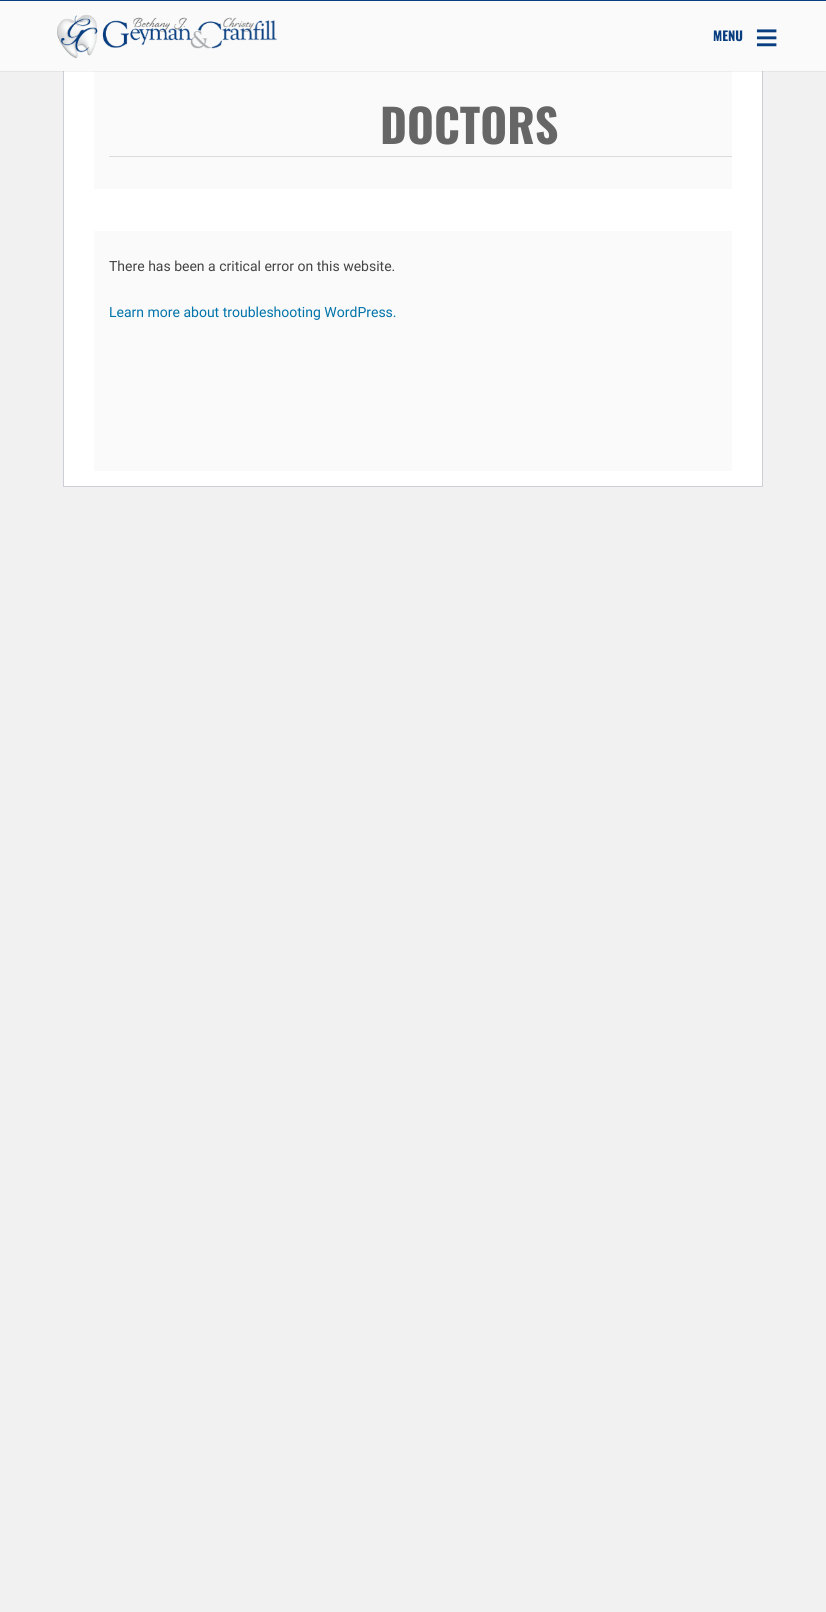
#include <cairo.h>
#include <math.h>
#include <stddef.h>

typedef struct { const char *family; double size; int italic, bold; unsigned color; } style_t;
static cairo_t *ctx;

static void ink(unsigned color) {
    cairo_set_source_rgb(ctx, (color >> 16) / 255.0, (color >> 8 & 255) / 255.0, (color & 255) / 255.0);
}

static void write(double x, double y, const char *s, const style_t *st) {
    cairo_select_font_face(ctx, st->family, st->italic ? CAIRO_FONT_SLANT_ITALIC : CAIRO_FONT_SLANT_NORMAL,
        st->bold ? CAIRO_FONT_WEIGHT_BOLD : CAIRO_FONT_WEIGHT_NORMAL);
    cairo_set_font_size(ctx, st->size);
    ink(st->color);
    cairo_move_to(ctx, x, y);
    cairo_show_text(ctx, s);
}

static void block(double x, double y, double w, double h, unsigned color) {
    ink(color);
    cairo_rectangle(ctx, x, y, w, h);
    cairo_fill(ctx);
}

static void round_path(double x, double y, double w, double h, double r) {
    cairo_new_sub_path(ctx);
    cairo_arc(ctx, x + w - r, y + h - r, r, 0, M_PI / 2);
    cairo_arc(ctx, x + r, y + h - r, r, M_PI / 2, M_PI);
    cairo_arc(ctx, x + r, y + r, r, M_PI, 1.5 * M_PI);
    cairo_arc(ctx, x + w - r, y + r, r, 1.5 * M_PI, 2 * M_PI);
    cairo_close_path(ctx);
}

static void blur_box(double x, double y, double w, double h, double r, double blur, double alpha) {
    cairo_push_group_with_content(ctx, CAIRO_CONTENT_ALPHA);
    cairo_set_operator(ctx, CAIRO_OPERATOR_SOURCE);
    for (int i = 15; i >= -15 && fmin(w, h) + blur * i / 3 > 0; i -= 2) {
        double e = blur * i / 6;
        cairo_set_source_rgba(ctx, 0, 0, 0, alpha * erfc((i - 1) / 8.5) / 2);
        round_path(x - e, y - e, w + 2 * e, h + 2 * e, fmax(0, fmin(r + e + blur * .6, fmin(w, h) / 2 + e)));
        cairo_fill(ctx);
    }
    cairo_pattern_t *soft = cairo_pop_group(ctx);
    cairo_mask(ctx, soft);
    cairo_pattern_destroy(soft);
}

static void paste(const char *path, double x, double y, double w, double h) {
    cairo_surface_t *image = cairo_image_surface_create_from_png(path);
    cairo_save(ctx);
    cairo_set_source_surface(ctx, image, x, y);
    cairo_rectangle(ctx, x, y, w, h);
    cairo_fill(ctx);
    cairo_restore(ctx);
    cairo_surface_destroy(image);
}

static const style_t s1 = {"Oswald", 13, 0, 1, 0x083e80};
static const style_t s2 = {"Liberation Sans", 40, 0, 1, 0x083e80};
static const style_t s3 = {"Oswald", 46, 0, 1, 0x666666};
static const style_t s4 = {"Roboto", 14, 0, 0, 0x444444};
static const style_t s5 = {"Roboto", 14, 0, 0, 0x0073aa};

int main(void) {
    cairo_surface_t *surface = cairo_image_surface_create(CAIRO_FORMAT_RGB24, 826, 1612);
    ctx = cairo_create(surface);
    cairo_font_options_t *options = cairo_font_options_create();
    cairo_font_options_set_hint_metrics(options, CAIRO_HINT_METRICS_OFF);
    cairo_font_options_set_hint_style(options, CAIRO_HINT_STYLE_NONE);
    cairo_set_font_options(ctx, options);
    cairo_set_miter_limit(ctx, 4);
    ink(0xf1f1f1);
    cairo_paint(ctx);
    block(64, 71, 698, 415, 0xffffff);
    cairo_rectangle(ctx, 63.5, 50.5, 699, 436);
    ink(0xccd0d4);
    cairo_set_line_width(ctx, 1);
    cairo_stroke(ctx);
    block(94, 71, 638, 118, 0xfafafa);
    ink(0x000000);
    blur_box(0, 0, 826, 71, 0, 0.5, 0.2);
    block(0, 1, 826, 70, 0xfafafa);
    block(0, 0, 826, 1, 0x083e80);
    paste("pic1.png", 57, 14, 220, 45);
    write(713, 41, "MENU", &s1);
    write(755, 51, "≡", &s2);
    block(109, 156, 623, 1, 0xdadada);
    write(380, 144, "DOCTORS", &s3);
    block(94, 231, 638, 240, 0xfafafa);
    write(109, 271, "There has been a critical error on this website.", &s4);
    write(109, 317, "Learn more about troubleshooting WordPress.", &s5);
    cairo_surface_write_to_png(surface, "screenshot.png");
    cairo_font_options_destroy(options);
    cairo_destroy(ctx);
    cairo_surface_destroy(surface);
    return 0;
}
